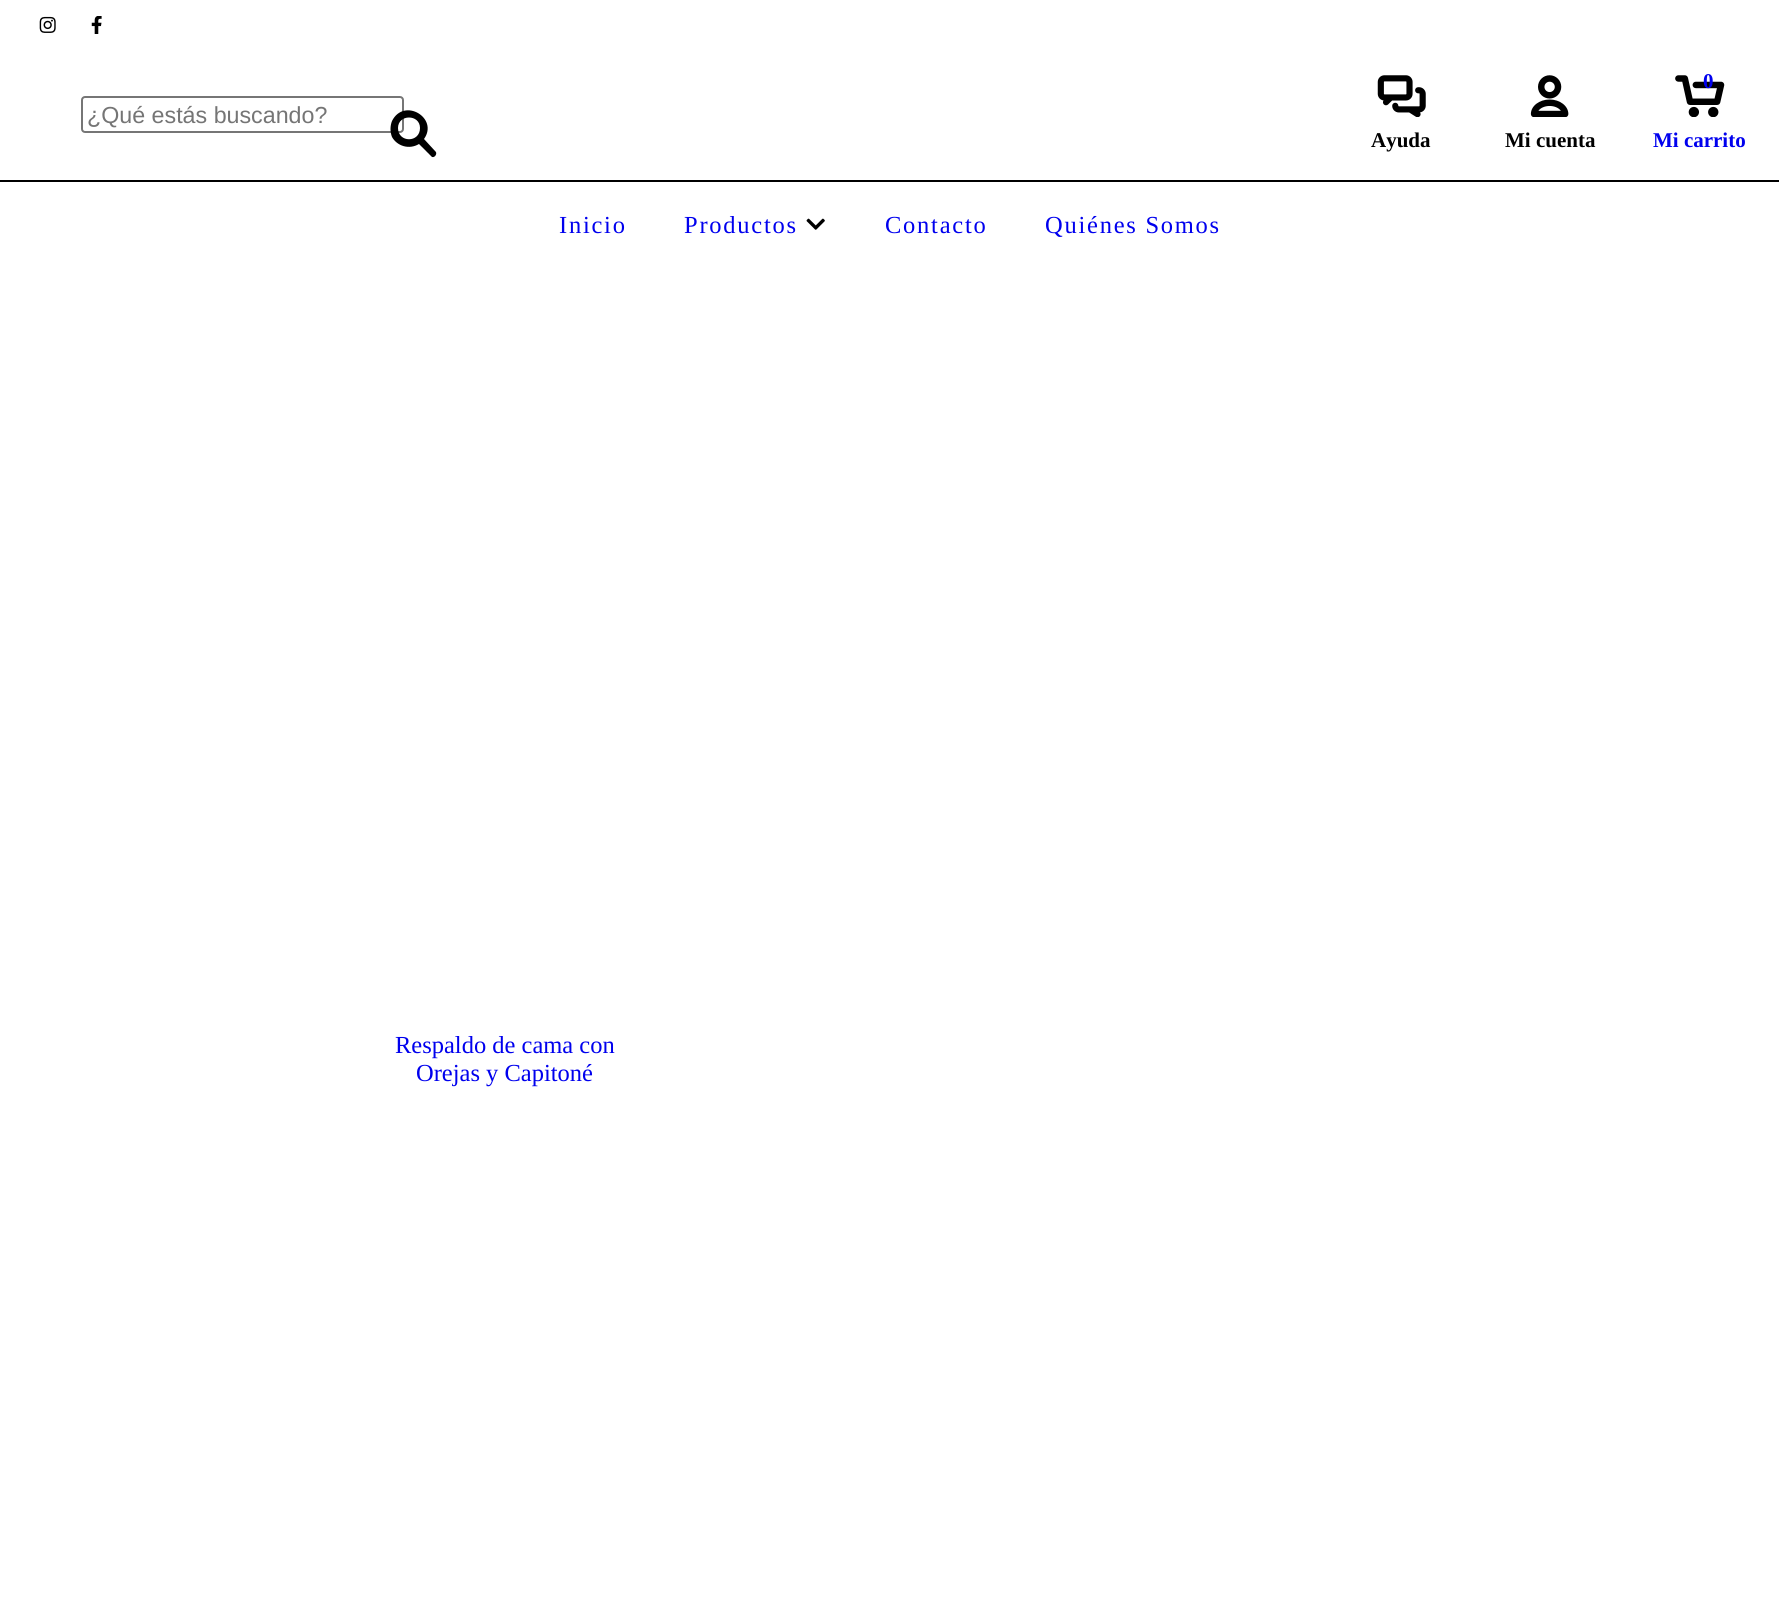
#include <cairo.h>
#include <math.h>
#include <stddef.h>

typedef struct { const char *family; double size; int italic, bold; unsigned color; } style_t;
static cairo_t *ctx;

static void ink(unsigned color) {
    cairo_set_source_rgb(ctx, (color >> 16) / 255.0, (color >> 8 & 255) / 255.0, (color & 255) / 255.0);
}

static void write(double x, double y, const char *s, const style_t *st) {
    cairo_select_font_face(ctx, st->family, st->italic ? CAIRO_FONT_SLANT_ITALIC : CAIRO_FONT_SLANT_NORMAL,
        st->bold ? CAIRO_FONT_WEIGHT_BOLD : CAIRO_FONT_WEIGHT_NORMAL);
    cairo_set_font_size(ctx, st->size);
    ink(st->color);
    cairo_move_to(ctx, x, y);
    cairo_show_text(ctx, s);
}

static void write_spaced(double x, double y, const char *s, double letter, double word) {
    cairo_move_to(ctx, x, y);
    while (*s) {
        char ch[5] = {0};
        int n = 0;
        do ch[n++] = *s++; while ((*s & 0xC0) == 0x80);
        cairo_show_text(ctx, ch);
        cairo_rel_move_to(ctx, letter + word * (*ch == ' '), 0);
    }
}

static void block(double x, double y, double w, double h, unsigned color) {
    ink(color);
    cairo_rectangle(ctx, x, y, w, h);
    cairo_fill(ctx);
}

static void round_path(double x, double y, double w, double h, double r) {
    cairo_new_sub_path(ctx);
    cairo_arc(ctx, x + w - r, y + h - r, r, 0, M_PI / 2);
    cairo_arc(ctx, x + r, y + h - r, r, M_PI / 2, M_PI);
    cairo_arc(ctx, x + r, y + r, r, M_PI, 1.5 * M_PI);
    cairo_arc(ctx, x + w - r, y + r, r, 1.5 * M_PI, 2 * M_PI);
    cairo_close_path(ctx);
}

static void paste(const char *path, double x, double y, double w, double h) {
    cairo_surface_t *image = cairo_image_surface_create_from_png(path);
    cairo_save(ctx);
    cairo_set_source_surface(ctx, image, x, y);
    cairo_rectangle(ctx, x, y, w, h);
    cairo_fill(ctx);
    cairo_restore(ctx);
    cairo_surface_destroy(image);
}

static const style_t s1 = {"Liberation Sans", 23.25, 0, 0, 0x757575};
static const style_t s2 = {"Liberation Serif", 21, 0, 1, 0x000000};
static const style_t s3 = {"Liberation Serif", 21, 0, 1, 0x0000ee};
static const style_t s4 = {"Liberation Serif", 24.5, 0, 0, 0x0000ee};

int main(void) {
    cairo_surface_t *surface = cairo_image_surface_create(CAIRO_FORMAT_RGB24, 1779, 1608);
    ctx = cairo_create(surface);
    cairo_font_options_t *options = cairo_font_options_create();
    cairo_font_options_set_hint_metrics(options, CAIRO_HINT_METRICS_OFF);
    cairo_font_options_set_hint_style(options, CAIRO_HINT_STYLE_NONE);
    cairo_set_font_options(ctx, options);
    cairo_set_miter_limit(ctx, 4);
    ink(0xffffff);
    cairo_paint(ctx);
    paste("pic1.png", 39, 16, 17, 17);
    paste("pic2.png", 91, 16, 11, 18);
    round_path(82, 97, 321, 35, 3);
    ink(0x767676);
    cairo_stroke(ctx);
    write(87, 123, "¿Qué estás buscando?", &s1);
    ink(0x000000);
    cairo_new_path(ctx);
    cairo_move_to(ctx, 435, 151);
    cairo_line_to(ctx, 424, 139);
    cairo_curve_to(ctx, 439, 118, 404, 97, 392, 121);
    cairo_curve_to(ctx, 390, 126, 390, 132, 392, 137);
    cairo_curve_to(ctx, 397, 146, 409, 150, 419, 144);
    cairo_line_to(ctx, 432, 157);
    cairo_curve_to(ctx, 435, 158, 438, 153, 435, 151);
    cairo_close_path(ctx);
    cairo_move_to(ctx, 398, 128);
    cairo_curve_to(ctx, 398, 114, 420, 114, 420, 128);
    cairo_curve_to(ctx, 420, 143, 398, 143, 398, 128);
    cairo_close_path(ctx);
    cairo_fill(ctx);
    paste("pic3.png", 1377, 75, 49, 42);
    write(1371, 147, "Ayuda", &s2);
    paste("pic4.png", 1530, 75, 39, 42);
    write(1505, 147, "Mi cuenta", &s2);
    paste("pic5.png", 1675, 75, 50, 42);
    write(1703, 88, "0", &s3);
    write(1653, 147, "Mi carrito", &s3);
    block(0, 180, 1779, 2, 0x000000);
    cairo_select_font_face(ctx, "Liberation Serif", CAIRO_FONT_SLANT_NORMAL, CAIRO_FONT_WEIGHT_NORMAL);
    cairo_set_font_size(ctx, 24.5);
    ink(0x0000ee);
    write_spaced(559, 233, "Inicio", 1.75, 0);
    write_spaced(684, 233, "Productos", 1.75, 0);
    paste("pic6.png", 806, 218, 19, 12);
    write_spaced(885, 233, "Contacto", 1.75, 0);
    write_spaced(1045, 233, "Quiénes Somos", 1.75, 0);
    write(395, 1053, "Respaldo de cama con", &s4);
    write(416, 1081, "Orejas y Capitoné", &s4);
    cairo_surface_write_to_png(surface, "screenshot.png");
    cairo_font_options_destroy(options);
    cairo_destroy(ctx);
    cairo_surface_destroy(surface);
    return 0;
}
